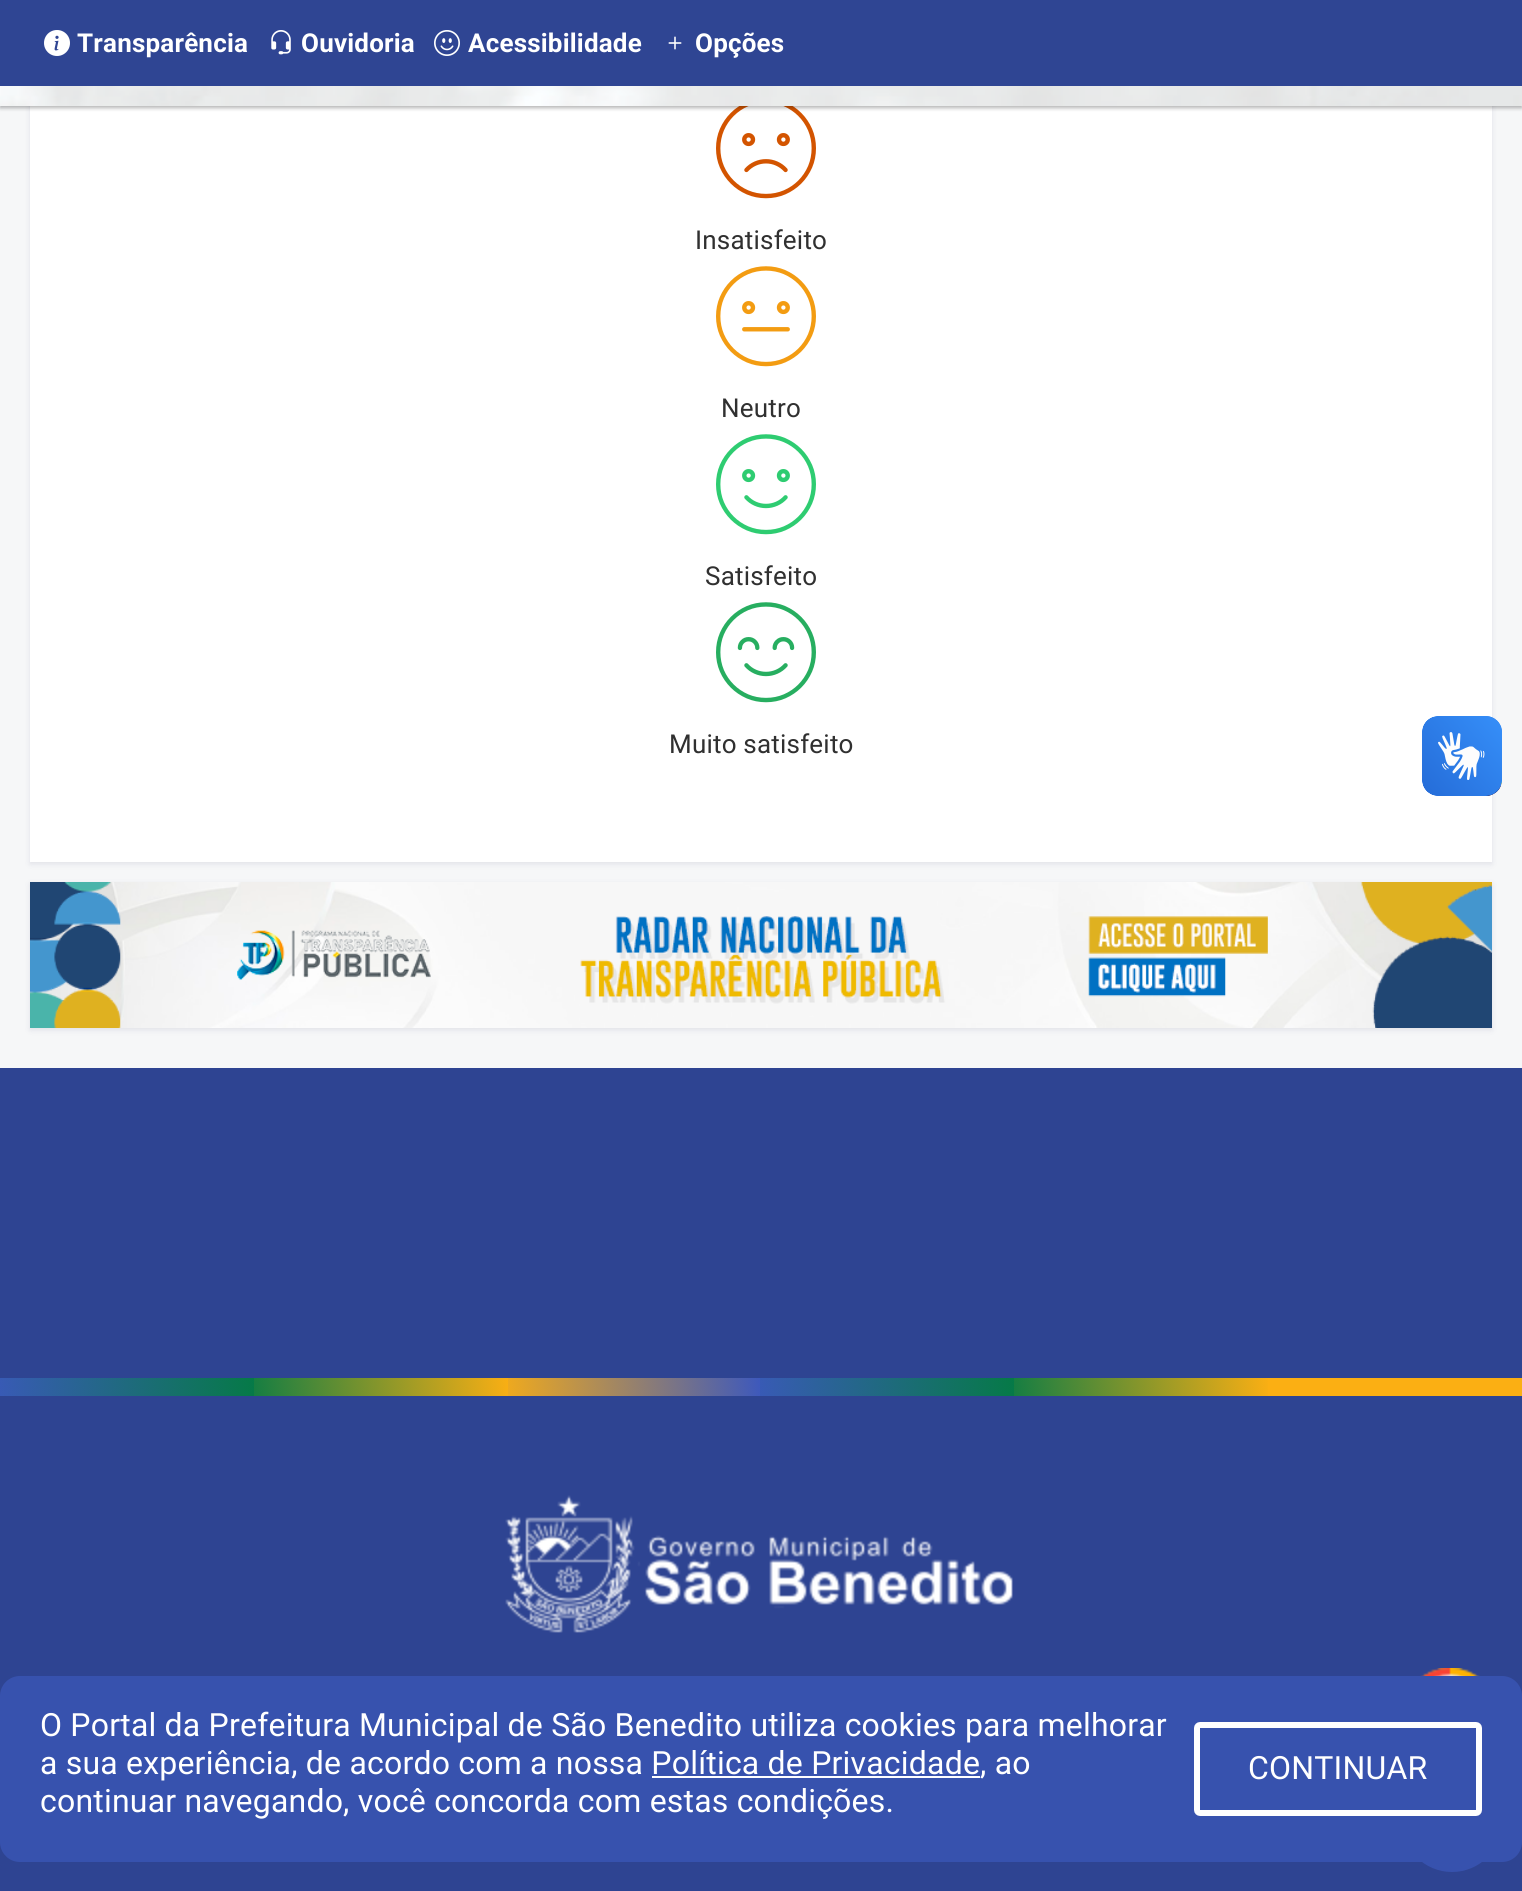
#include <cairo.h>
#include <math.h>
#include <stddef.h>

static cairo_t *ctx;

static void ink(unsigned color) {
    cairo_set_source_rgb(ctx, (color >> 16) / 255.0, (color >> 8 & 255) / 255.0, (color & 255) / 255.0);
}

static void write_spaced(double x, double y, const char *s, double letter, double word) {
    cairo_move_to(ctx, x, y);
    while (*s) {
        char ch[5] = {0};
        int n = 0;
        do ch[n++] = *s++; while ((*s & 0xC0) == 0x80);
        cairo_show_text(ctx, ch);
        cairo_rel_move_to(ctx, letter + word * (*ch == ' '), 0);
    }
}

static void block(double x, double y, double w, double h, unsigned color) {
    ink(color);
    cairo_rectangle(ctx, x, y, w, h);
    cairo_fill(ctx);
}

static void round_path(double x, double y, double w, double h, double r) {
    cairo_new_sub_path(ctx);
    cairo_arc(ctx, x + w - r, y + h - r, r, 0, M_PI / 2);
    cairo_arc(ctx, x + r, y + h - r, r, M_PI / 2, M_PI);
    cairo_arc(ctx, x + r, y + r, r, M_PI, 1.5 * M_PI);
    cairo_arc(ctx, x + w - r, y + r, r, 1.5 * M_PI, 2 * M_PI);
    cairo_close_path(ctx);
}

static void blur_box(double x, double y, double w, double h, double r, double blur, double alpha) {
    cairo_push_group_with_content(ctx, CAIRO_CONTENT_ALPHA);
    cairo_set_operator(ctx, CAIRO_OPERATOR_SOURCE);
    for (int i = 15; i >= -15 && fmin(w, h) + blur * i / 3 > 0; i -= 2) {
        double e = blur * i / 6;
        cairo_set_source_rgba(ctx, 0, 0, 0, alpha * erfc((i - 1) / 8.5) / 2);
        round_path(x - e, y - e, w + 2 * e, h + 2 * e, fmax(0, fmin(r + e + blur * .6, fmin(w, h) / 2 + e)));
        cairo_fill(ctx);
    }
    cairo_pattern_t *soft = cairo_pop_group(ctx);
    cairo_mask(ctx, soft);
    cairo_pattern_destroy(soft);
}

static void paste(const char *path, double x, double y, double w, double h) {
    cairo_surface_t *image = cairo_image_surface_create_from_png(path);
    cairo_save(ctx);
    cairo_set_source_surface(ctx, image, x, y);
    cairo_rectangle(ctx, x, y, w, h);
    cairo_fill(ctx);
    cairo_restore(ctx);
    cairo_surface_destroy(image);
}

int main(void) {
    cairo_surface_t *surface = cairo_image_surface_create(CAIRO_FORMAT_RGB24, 1522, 1891);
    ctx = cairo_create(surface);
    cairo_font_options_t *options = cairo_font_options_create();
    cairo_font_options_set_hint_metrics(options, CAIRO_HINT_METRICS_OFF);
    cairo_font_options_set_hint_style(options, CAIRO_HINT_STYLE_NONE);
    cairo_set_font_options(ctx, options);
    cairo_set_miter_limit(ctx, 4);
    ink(0xf6f7f8);
    cairo_paint(ctx);
    ink(0x030047);
    blur_box(30, -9, 1462, 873, 0, 3, 0.09);
    block(30, 106, 1462, 756, 0xffffff);
    paste("pic6.png", 716, 106, 100, 93);
    ink(0x000000);
    blur_box(0, 2, 1522, 106, 0, 2, 0.3);
    paste("pic1.png", 0, 86, 1522, 20);
    block(0, 0, 1522, 86, 0x2f4593);
    paste("pic2.png", 44, 30, 26, 26);
    cairo_select_font_face(ctx, "Roboto", CAIRO_FONT_SLANT_NORMAL, CAIRO_FONT_WEIGHT_BOLD);
    cairo_set_font_size(ctx, 26);
    ink(0xffffff);
    write_spaced(77, 52, "Transparência", 0.2, 0);
    paste("pic3.png", 271, 30, 20, 25);
    write_spaced(301, 52, "Ouvidoria", 0.2, 0);
    paste("pic4.png", 434, 30, 26, 26);
    write_spaced(468, 52, "Acessibilidade", 0.2, 0);
    paste("pic5.png", 668, 36, 14, 14);
    write_spaced(695, 52, "Opções", 0.2, 0);
    cairo_select_font_face(ctx, "Roboto", CAIRO_FONT_SLANT_NORMAL, CAIRO_FONT_WEIGHT_NORMAL);
    ink(0x303030);
    write_spaced(695, 249, "Insatisfeito", 0.2, 0);
    paste("pic7.png", 716, 266, 100, 101);
    write_spaced(721, 417, "Neutro", 0.2, 0);
    paste("pic8.png", 716, 434, 100, 101);
    write_spaced(705, 585, "Satisfeito", 0.2, 0);
    paste("pic9.png", 716, 602, 100, 101);
    write_spaced(669, 753, "Muito satisfeito", 0.2, 0);
    paste("pic10.png", 1422, 716, 80, 80);
    paste("pic11.png", 1422, 716, 80, 80);
    ink(0x030047);
    blur_box(30, 884, 1462, 146, 0, 3, 0.09);
    paste("pic12.png", 30, 882, 1462, 146);
    block(0, 1068, 1522, 823, 0x2e4492);
    paste("pic13.png", 0, 1378, 254, 18);
    paste("pic14.png", 254, 1378, 254, 18);
    paste("pic15.png", 508, 1378, 252, 18);
    paste("pic16.png", 760, 1378, 254, 18);
    paste("pic17.png", 1014, 1378, 254, 18);
    block(1268, 1378, 254, 18, 0xfbaf13);
    paste("pic18.png", 505, 1495, 508, 138);
    paste("pic19.png", 1420, 1668, 60, 8);
    ink(0x3752ae);
    cairo_arc(ctx, 1452, 1822, 50, 0, 2 * M_PI);
    cairo_fill(ctx);
    round_path(0, 1676, 1522, 186, 20);
    cairo_fill(ctx);
    cairo_set_font_size(ctx, 32);
    ink(0xffffff);
    write_spaced(40, 1736, "O Portal da Prefeitura Municipal de São Benedito utiliza cookies para melhorar", 0.2, 0);
    write_spaced(40, 1774, "a sua experiência, de acordo com a nossa Política de Privacidade, ao", 0.2, 0);
    block(652, 1776, 328, 2, 0xffffff);
    write_spaced(40, 1812, "continuar navegando, você concorda com estas condições.", 0.2, 0);
    round_path(1197, 1725, 282, 88, 3);
    cairo_set_line_width(ctx, 6);
    cairo_stroke(ctx);
    write_spaced(1248, 1779, "CONTINUAR", 0.2, 0);
    cairo_surface_write_to_png(surface, "screenshot.png");
    cairo_font_options_destroy(options);
    cairo_destroy(ctx);
    cairo_surface_destroy(surface);
    return 0;
}
